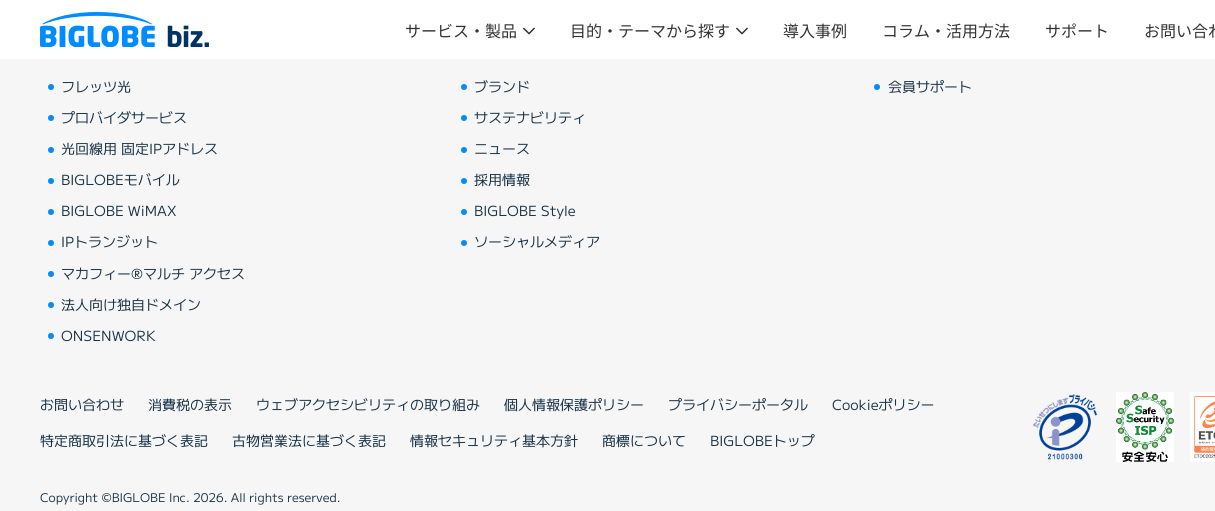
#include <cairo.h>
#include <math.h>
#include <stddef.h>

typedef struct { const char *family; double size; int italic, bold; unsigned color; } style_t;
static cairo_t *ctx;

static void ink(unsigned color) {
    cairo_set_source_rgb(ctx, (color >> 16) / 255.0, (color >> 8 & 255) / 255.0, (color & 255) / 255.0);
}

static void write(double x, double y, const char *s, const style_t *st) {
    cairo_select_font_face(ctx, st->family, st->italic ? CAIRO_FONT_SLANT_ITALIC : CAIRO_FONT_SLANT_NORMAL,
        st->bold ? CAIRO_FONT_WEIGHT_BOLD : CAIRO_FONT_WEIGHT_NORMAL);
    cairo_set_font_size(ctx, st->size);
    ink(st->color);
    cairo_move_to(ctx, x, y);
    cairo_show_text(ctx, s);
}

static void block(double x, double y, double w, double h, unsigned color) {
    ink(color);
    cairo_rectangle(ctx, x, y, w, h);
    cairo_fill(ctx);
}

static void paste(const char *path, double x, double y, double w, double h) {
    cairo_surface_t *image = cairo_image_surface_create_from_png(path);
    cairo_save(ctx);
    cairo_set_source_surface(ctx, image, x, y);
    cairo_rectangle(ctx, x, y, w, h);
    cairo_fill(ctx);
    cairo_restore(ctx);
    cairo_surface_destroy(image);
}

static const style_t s1 = {"Noto Sans JP Thin", 16, 0, 0, 0x333333};
static const style_t s2 = {"M PLUS 1", 14, 0, 0, 0x1a3347};
static const style_t s3 = {"M PLUS 1", 12, 0, 0, 0x1a3347};

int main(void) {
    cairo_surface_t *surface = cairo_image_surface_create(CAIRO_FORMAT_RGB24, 1215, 511);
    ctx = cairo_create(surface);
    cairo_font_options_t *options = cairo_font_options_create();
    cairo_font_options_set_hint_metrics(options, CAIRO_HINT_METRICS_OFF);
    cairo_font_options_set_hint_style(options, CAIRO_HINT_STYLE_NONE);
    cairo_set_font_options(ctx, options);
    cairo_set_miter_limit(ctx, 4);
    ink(0xf6f6f6);
    cairo_paint(ctx);
    block(0, 0, 1215, 59, 0xffffff);
    paste("pic1.png", 40, 12, 169, 35);
    write(405, 37, "サービス・製品", &s1);
    paste("pic2.png", 523, 27, 12, 8);
    write(570, 37, "目的・テーマから探す", &s1);
    paste("pic2.png", 736, 27, 12, 8);
    write(783, 37, "導入事例", &s1);
    write(882, 37, "コラム・活用方法", &s1);
    write(1045, 37, "サポート", &s1);
    write(1144, 37, "お問い合わ", &s1);
    ink(0x008cff);
    cairo_new_path(ctx);
    cairo_arc(ctx, 51, 87, 3, 0, 2 * M_PI);
    cairo_fill(ctx);
    write(61, 92, "フレッツ光", &s2);
    ink(0x008cff);
    cairo_new_path(ctx);
    cairo_arc(ctx, 51, 118, 3, 0, 2 * M_PI);
    cairo_fill(ctx);
    write(61, 123, "プロバイダサービス", &s2);
    ink(0x008cff);
    cairo_new_path(ctx);
    cairo_arc(ctx, 51, 150, 3, 0, 2 * M_PI);
    cairo_fill(ctx);
    write(61, 154, "光回線用 固定IPアドレス", &s2);
    ink(0x008cff);
    cairo_new_path(ctx);
    cairo_arc(ctx, 51, 181, 3, 0, 2 * M_PI);
    cairo_fill(ctx);
    write(61, 185, "BIGLOBEモバイル", &s2);
    ink(0x008cff);
    cairo_new_path(ctx);
    cairo_arc(ctx, 51, 212, 3, 0, 2 * M_PI);
    cairo_fill(ctx);
    write(61, 216, "BIGLOBE WiMAX", &s2);
    ink(0x008cff);
    cairo_new_path(ctx);
    cairo_arc(ctx, 51, 243, 3, 0, 2 * M_PI);
    cairo_fill(ctx);
    write(61, 247, "IPトランジット", &s2);
    ink(0x008cff);
    cairo_new_path(ctx);
    cairo_arc(ctx, 51, 274, 3, 0, 2 * M_PI);
    cairo_fill(ctx);
    write(61, 279, "マカフィー®マルチ アクセス", &s2);
    ink(0x008cff);
    cairo_new_path(ctx);
    cairo_arc(ctx, 51, 305, 3, 0, 2 * M_PI);
    cairo_fill(ctx);
    write(61, 310, "法人向け独自ドメイン", &s2);
    ink(0x008cff);
    cairo_new_path(ctx);
    cairo_arc(ctx, 51, 336, 3, 0, 2 * M_PI);
    cairo_fill(ctx);
    write(61, 341, "ONSENWORK", &s2);
    ink(0x008cff);
    cairo_new_path(ctx);
    cairo_arc(ctx, 464, 87, 3, 0, 2 * M_PI);
    cairo_fill(ctx);
    write(474, 92, "ブランド", &s2);
    ink(0x008cff);
    cairo_new_path(ctx);
    cairo_arc(ctx, 464, 118, 3, 0, 2 * M_PI);
    cairo_fill(ctx);
    write(474, 123, "サステナビリティ", &s2);
    ink(0x008cff);
    cairo_new_path(ctx);
    cairo_arc(ctx, 464, 150, 3, 0, 2 * M_PI);
    cairo_fill(ctx);
    write(474, 154, "ニュース", &s2);
    ink(0x008cff);
    cairo_new_path(ctx);
    cairo_arc(ctx, 464, 181, 3, 0, 2 * M_PI);
    cairo_fill(ctx);
    write(474, 185, "採用情報", &s2);
    ink(0x008cff);
    cairo_new_path(ctx);
    cairo_arc(ctx, 464, 212, 3, 0, 2 * M_PI);
    cairo_fill(ctx);
    write(474, 216, "BIGLOBE Style", &s2);
    ink(0x008cff);
    cairo_new_path(ctx);
    cairo_arc(ctx, 464, 243, 3, 0, 2 * M_PI);
    cairo_fill(ctx);
    write(474, 247, "ソーシャルメディア", &s2);
    ink(0x008cff);
    cairo_new_path(ctx);
    cairo_arc(ctx, 877, 87, 3, 0, 2 * M_PI);
    cairo_fill(ctx);
    write(888, 92, "会員サポート", &s2);
    write(40, 410, "お問い合わせ", &s2);
    write(148, 410, "消費税の表示", &s2);
    write(256, 410, "ウェブアクセシビリティの取り組み", &s2);
    write(504, 410, "個人情報保護ポリシー", &s2);
    write(668, 410, "プライバシーポータル", &s2);
    write(832, 410, "Cookieポリシー", &s2);
    write(40, 446, "特定商取引法に基づく表記", &s2);
    write(232, 446, "古物営業法に基づく表記", &s2);
    write(410, 446, "情報セキュリティ基本方針", &s2);
    write(602, 446, "商標について", &s2);
    write(710, 446, "BIGLOBEトップ", &s2);
    paste("pic3.png", 1033, 394, 65, 66);
    paste("pic4.png", 1116, 392, 58, 70);
    block(1190, 392, 25, 70, 0xffffff);
    paste("pic5.png", 1194, 396, 21, 62);
    write(40, 502, "Copyright ©BIGLOBE Inc. 2026. All rights reserved.", &s3);
    cairo_surface_write_to_png(surface, "screenshot.png");
    cairo_font_options_destroy(options);
    cairo_destroy(ctx);
    cairo_surface_destroy(surface);
    return 0;
}
